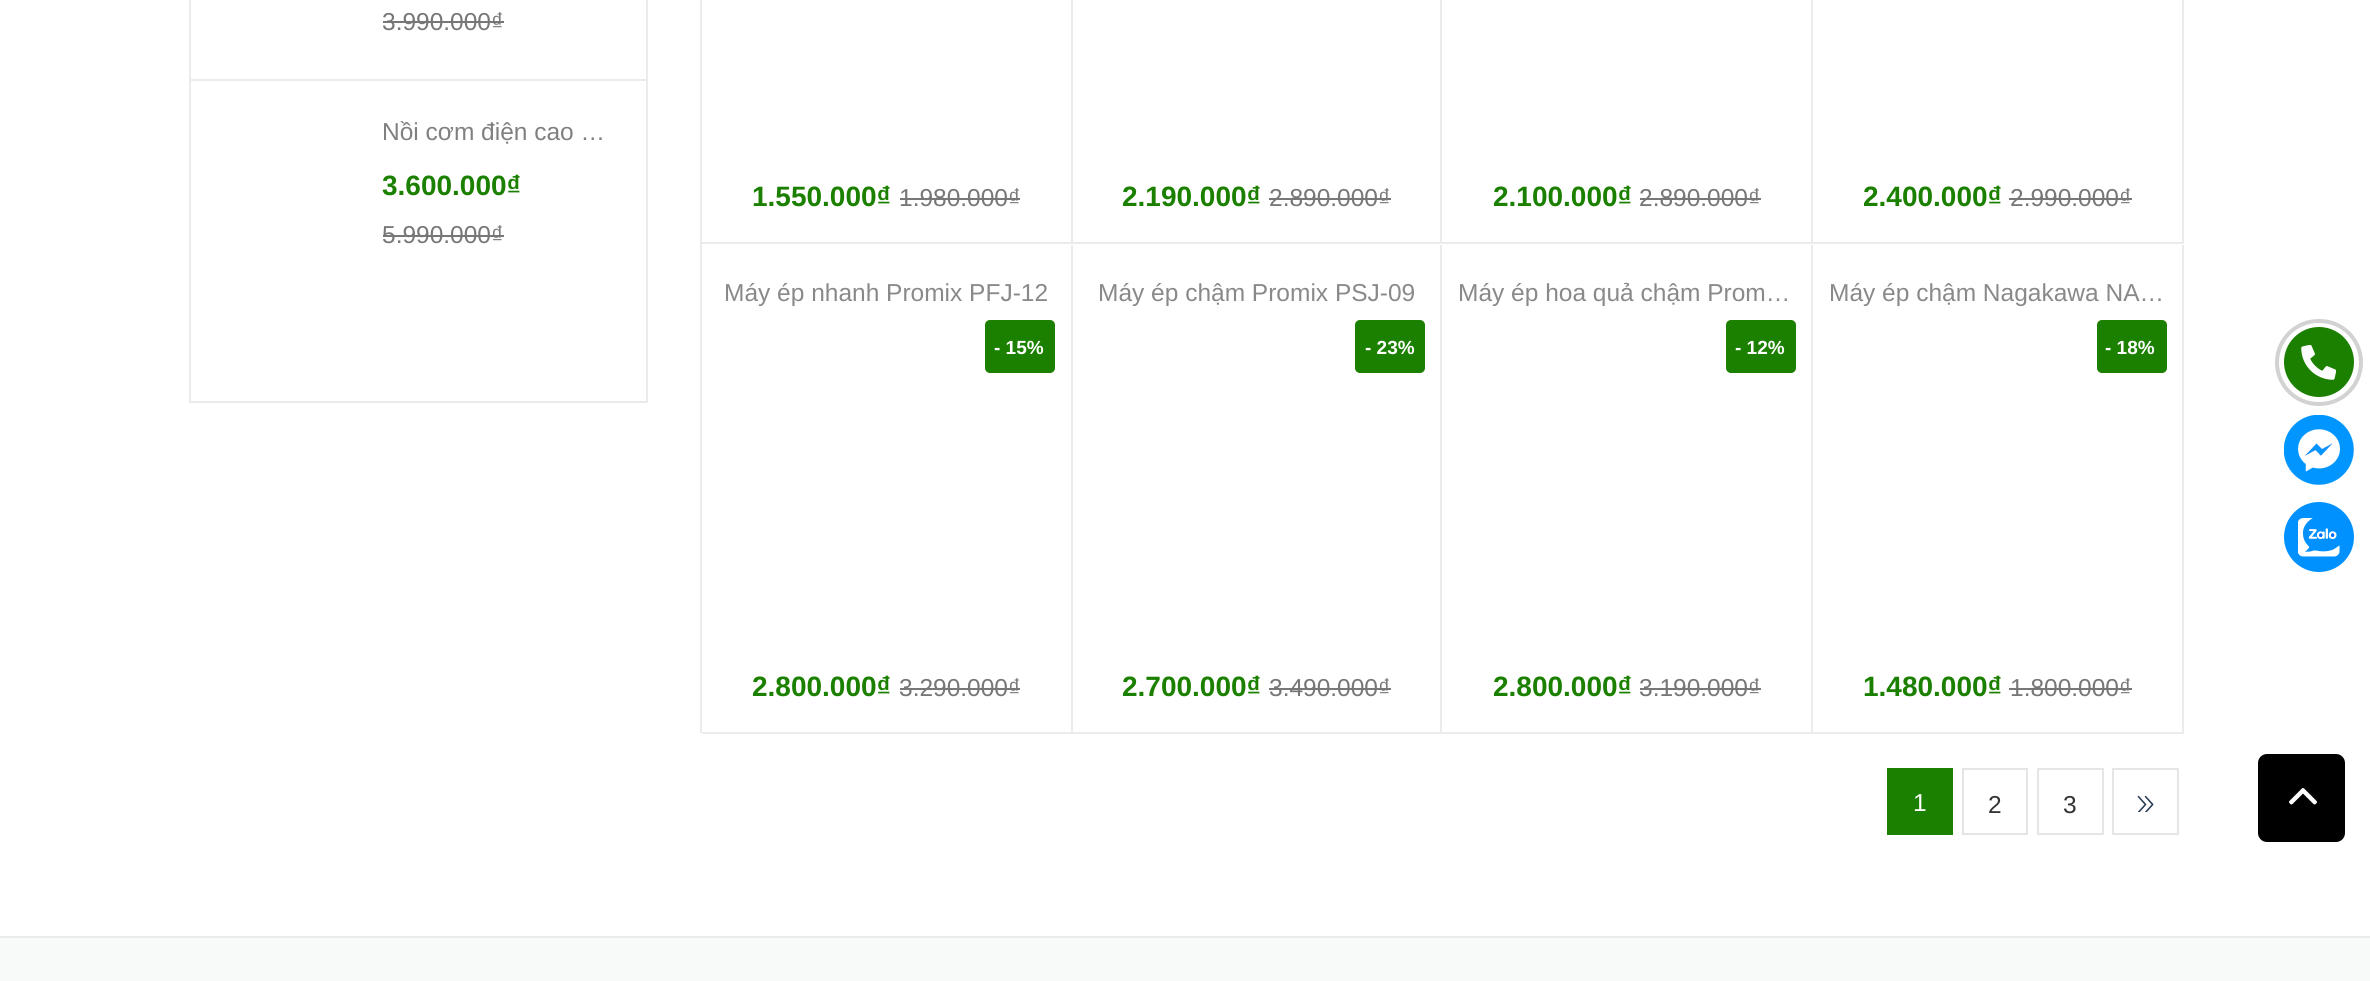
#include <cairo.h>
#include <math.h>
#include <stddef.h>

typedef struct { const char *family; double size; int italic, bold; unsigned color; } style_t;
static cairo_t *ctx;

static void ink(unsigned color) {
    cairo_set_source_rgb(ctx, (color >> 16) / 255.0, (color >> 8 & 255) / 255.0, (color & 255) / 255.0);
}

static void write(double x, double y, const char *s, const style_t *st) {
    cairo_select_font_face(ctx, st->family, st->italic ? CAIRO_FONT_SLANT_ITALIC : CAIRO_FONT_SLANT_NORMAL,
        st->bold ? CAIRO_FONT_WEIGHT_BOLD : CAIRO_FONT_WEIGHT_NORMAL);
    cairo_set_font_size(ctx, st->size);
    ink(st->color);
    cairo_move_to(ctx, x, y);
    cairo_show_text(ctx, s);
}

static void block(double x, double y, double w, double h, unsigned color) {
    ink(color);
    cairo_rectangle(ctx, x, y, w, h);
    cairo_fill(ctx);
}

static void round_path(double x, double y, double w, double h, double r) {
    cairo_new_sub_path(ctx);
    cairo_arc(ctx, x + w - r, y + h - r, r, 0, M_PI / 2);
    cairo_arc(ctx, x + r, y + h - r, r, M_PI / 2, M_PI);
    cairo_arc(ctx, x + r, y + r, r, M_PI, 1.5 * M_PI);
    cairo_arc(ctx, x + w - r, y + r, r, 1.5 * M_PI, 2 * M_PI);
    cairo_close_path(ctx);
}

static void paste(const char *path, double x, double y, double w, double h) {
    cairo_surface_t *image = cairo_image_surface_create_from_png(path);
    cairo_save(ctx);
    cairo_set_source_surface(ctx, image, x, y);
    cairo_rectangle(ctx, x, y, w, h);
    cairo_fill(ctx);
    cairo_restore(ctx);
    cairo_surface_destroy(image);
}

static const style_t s1 = {"Liberation Sans", 24.5, 0, 0, 0x777777};
static const style_t s2 = {"Liberation Sans", 24.5, 0, 0, 0x808080};
static const style_t s3 = {"Liberation Sans", 28, 0, 1, 0x1b8000};
static const style_t s4 = {"Liberation Sans", 24.5, 0, 0, 0x898989};
static const style_t s5 = {"Liberation Sans", 19, 0, 1, 0xffffff};
static const style_t s6 = {"Liberation Sans", 24.5, 0, 0, 0xffffff};
static const style_t s7 = {"Liberation Sans", 24.5, 0, 0, 0x333333};

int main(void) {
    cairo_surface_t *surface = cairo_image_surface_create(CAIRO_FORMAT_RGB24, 2370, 981);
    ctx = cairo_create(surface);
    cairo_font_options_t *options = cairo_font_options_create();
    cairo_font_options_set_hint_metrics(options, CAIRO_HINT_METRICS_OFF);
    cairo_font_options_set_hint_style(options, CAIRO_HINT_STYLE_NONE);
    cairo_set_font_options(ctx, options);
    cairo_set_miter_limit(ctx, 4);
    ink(0xffffff);
    cairo_paint(ctx);
    block(646, 0, 2, 403, 0xebebeb);
    block(189, 0, 2, 403, 0xebebeb);
    block(191, 79, 455, 2, 0xebebeb);
    write(382, 30, "3.990.000₫", &s1);
    block(383, 21, 121, 2, 0x777777);
    block(191, 401, 455, 2, 0xebebeb);
    write(382, 140, "Nồi cơm điện cao …", &s2);
    write(382, 195, "3.600.000₫", &s3);
    write(382, 243, "5.990.000₫", &s1);
    block(383, 235, 121, 2, 0x777777);
    block(700, 0, 2, 733, 0xebebeb);
    block(1071, 0, 2, 243, 0xebebeb);
    block(702, 242, 371, 2, 0xebebeb);
    write(752, 206, "1.550.000₫", &s3);
    write(899, 206, "1.980.000₫", &s1);
    block(900, 198, 120, 2, 0x777777);
    block(1440, 0, 2, 243, 0xebebeb);
    block(1073, 242, 369, 2, 0xebebeb);
    write(1122, 206, "2.190.000₫", &s3);
    write(1269, 206, "2.890.000₫", &s1);
    block(1269, 198, 122, 2, 0x777777);
    block(1811, 0, 2, 243, 0xebebeb);
    block(1442, 242, 371, 2, 0xebebeb);
    write(1493, 206, "2.100.000₫", &s3);
    write(1639, 206, "2.890.000₫", &s1);
    block(1640, 198, 121, 2, 0x777777);
    block(2182, 0, 2, 243, 0xebebeb);
    block(1813, 242, 371, 2, 0xebebeb);
    write(1863, 206, "2.400.000₫", &s3);
    write(2010, 206, "2.990.000₫", &s1);
    block(2009, 198, 123, 2, 0x777777);
    block(1071, 245, 2, 488, 0xebebeb);
    block(702, 732, 371, 2, 0xebebeb);
    write(724, 301, "Máy ép nhanh Promix PFJ-12", &s4);
    ink(0x1b8000);
    round_path(985, 320, 70, 53, 5);
    cairo_fill(ctx);
    write(994, 354, "- 15%", &s5);
    write(752, 696, "2.800.000₫", &s3);
    write(899, 696, "3.290.000₫", &s1);
    block(900, 688, 120, 2, 0x777777);
    block(1440, 245, 2, 488, 0xebebeb);
    block(1073, 732, 369, 2, 0xebebeb);
    write(1098, 301, "Máy ép chậm Promix PSJ-09", &s4);
    ink(0x1b8000);
    round_path(1355, 320, 70, 53, 5);
    cairo_fill(ctx);
    write(1365, 354, "- 23%", &s5);
    write(1122, 696, "2.700.000₫", &s3);
    write(1269, 696, "3.490.000₫", &s1);
    block(1269, 688, 122, 2, 0x777777);
    block(1811, 245, 2, 488, 0xebebeb);
    block(1442, 732, 371, 2, 0xebebeb);
    write(1458, 301, "Máy ép hoa quả chậm Prom…", &s4);
    ink(0x1b8000);
    round_path(1726, 320, 70, 53, 5);
    cairo_fill(ctx);
    write(1735, 354, "- 12%", &s5);
    write(1493, 696, "2.800.000₫", &s3);
    write(1639, 696, "3.190.000₫", &s1);
    block(1640, 688, 121, 2, 0x777777);
    block(2182, 245, 2, 488, 0xebebeb);
    block(1813, 732, 371, 2, 0xebebeb);
    write(1829, 301, "Máy ép chậm Nagakawa NA…", &s4);
    ink(0x1b8000);
    round_path(2097, 320, 70, 53, 5);
    cairo_fill(ctx);
    write(2105, 354, "- 18%", &s5);
    write(1863, 696, "1.480.000₫", &s3);
    write(2010, 696, "1.800.000₫", &s1);
    block(2009, 688, 123, 2, 0x777777);
    block(1887, 768, 66, 67, 0x1b8000);
    write(1913, 811, "1", &s6);
    cairo_rectangle(ctx, 1963, 769, 64, 65);
    ink(0xe5e5e5);
    cairo_stroke(ctx);
    write(1988, 813, "2", &s7);
    cairo_rectangle(ctx, 2038, 769, 65, 65);
    ink(0xe5e5e5);
    cairo_stroke(ctx);
    write(2063, 813, "3", &s7);
    cairo_rectangle(ctx, 2113, 769, 65, 65);
    ink(0xe5e5e5);
    cairo_stroke(ctx);
    paste("pic1.png", 2137, 795, 17, 17);
    round_path(2277, 321, 84, 83, 41.5);
    ink(0xd2d2d2);
    cairo_set_line_width(ctx, 4);
    cairo_stroke(ctx);
    ink(0x1b8000);
    cairo_arc(ctx, 2319, 362, 35, 0, 2 * M_PI);
    cairo_fill(ctx);
    paste("pic2.png", 2301, 345, 35, 35);
    paste("pic3.png", 2284, 415, 70, 70);
    paste("pic4.png", 2284, 502, 70, 70);
    ink(0x000000);
    round_path(2258, 754, 87, 88, 9);
    cairo_fill(ctx);
    paste("pic5.png", 2289, 788, 28, 17);
    block(0, 938, 2370, 43, 0xf8f9f9);
    block(0, 936, 2370, 2, 0xebebeb);
    cairo_surface_write_to_png(surface, "screenshot.png");
    cairo_font_options_destroy(options);
    cairo_destroy(ctx);
    cairo_surface_destroy(surface);
    return 0;
}
